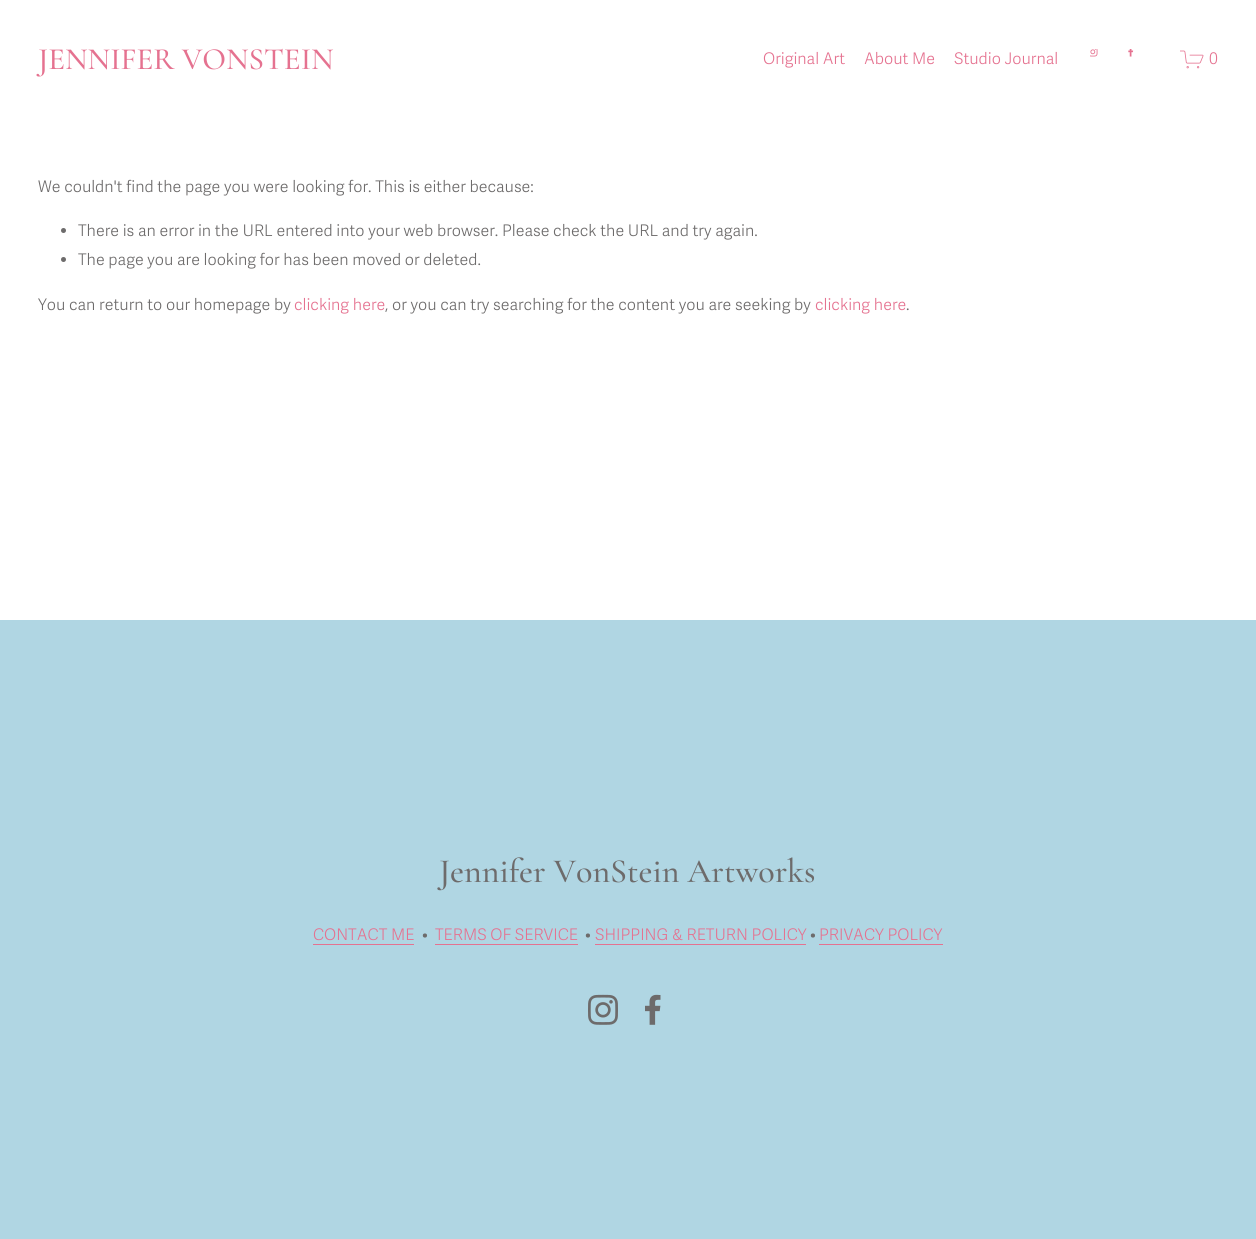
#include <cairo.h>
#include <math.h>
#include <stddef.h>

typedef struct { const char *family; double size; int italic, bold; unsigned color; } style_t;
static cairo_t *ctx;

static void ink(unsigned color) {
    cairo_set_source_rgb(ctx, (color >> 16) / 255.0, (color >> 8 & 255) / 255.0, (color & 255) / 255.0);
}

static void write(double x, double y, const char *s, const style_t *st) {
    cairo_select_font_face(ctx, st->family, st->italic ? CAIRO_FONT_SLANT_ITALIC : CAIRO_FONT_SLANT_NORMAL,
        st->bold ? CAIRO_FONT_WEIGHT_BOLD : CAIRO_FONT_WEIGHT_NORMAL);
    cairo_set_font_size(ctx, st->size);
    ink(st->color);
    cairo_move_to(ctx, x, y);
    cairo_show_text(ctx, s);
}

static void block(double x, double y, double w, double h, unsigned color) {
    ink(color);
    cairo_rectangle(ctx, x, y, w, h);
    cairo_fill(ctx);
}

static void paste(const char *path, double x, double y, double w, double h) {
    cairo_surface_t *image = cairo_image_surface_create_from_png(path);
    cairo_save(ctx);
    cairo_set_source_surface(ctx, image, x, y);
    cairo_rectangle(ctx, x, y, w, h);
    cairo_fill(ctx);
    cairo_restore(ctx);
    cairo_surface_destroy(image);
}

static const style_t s1 = {"Cormorant Garamond Medium", 31, 0, 0, 0xe57290};
static const style_t s2 = {"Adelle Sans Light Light", 16, 0, 0, 0xe57290};
static const style_t s3 = {"Adelle Sans Light Light", 16, 0, 0, 0x6d6b6b};
static const style_t s4 = {"Cormorant Garamond Medium", 34, 0, 0, 0x6d6b6b};

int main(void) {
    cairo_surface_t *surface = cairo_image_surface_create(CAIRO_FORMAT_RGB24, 1256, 1239);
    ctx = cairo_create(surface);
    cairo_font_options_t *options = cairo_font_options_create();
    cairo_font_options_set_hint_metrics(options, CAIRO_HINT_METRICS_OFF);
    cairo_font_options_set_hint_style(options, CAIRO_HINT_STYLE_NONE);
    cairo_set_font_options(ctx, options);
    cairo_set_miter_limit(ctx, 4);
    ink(0xffffff);
    cairo_paint(ctx);
    write(38, 69, "JENNIFER VONSTEIN", &s1);
    write(763, 64, "Original Art", &s2);
    write(864, 64, "About Me", &s2);
    write(954, 64, "Studio Journal", &s2);
    paste("pic1.png", 1090, 49, 8, 8);
    paste("pic2.png", 1128, 49, 6, 8);
    paste("pic3.png", 1180, 50, 24, 19);
    write(1209, 64, "0", &s2);
    write(38, 192, "We couldn't find the page you were looking for. This is either because:", &s3);
    cairo_new_path(ctx);
    cairo_arc(ctx, 63.5, 230.5, 2.5, 0, 2 * M_PI);
    cairo_fill(ctx);
    write(78, 236, "There is an error in the URL entered into your web browser. Please check the URL and try again.", &s3);
    cairo_new_path(ctx);
    cairo_arc(ctx, 63.5, 259.5, 2.5, 0, 2 * M_PI);
    cairo_fill(ctx);
    write(78, 265, "The page you are looking for has been moved or deleted.", &s3);
    write(38, 310, "You can return to our homepage by", &s3);
    write(294, 310, "clicking here", &s2);
    write(385, 310, ", or you can try searching for the content you are seeking by", &s3);
    write(815, 310, "clicking here", &s2);
    write(906, 310, ".", &s3);
    block(0, 620, 1256, 619, 0xb0d6e3);
    write(439, 882, "Jennifer VonStein Artworks", &s4);
    write(313, 940, "CONTACT ME", &s2);
    block(313, 944, 101, 1, 0xe57290);
    write(422, 940, "•", &s3);
    write(435, 940, "TERMS OF SERVICE", &s2);
    block(435, 944, 143, 1, 0xe57290);
    write(585, 940, "•", &s3);
    write(595, 940, "SHIPPING & RETURN POLICY", &s2);
    block(595, 944, 211, 1, 0xe57290);
    write(810, 940, "•", &s3);
    write(819, 940, "PRIVACY POLICY", &s2);
    block(819, 944, 124, 1, 0xe57290);
    paste("pic4.png", 588, 994, 30, 31);
    paste("pic5.png", 645, 994, 16, 31);
    cairo_surface_write_to_png(surface, "screenshot.png");
    cairo_font_options_destroy(options);
    cairo_destroy(ctx);
    cairo_surface_destroy(surface);
    return 0;
}
